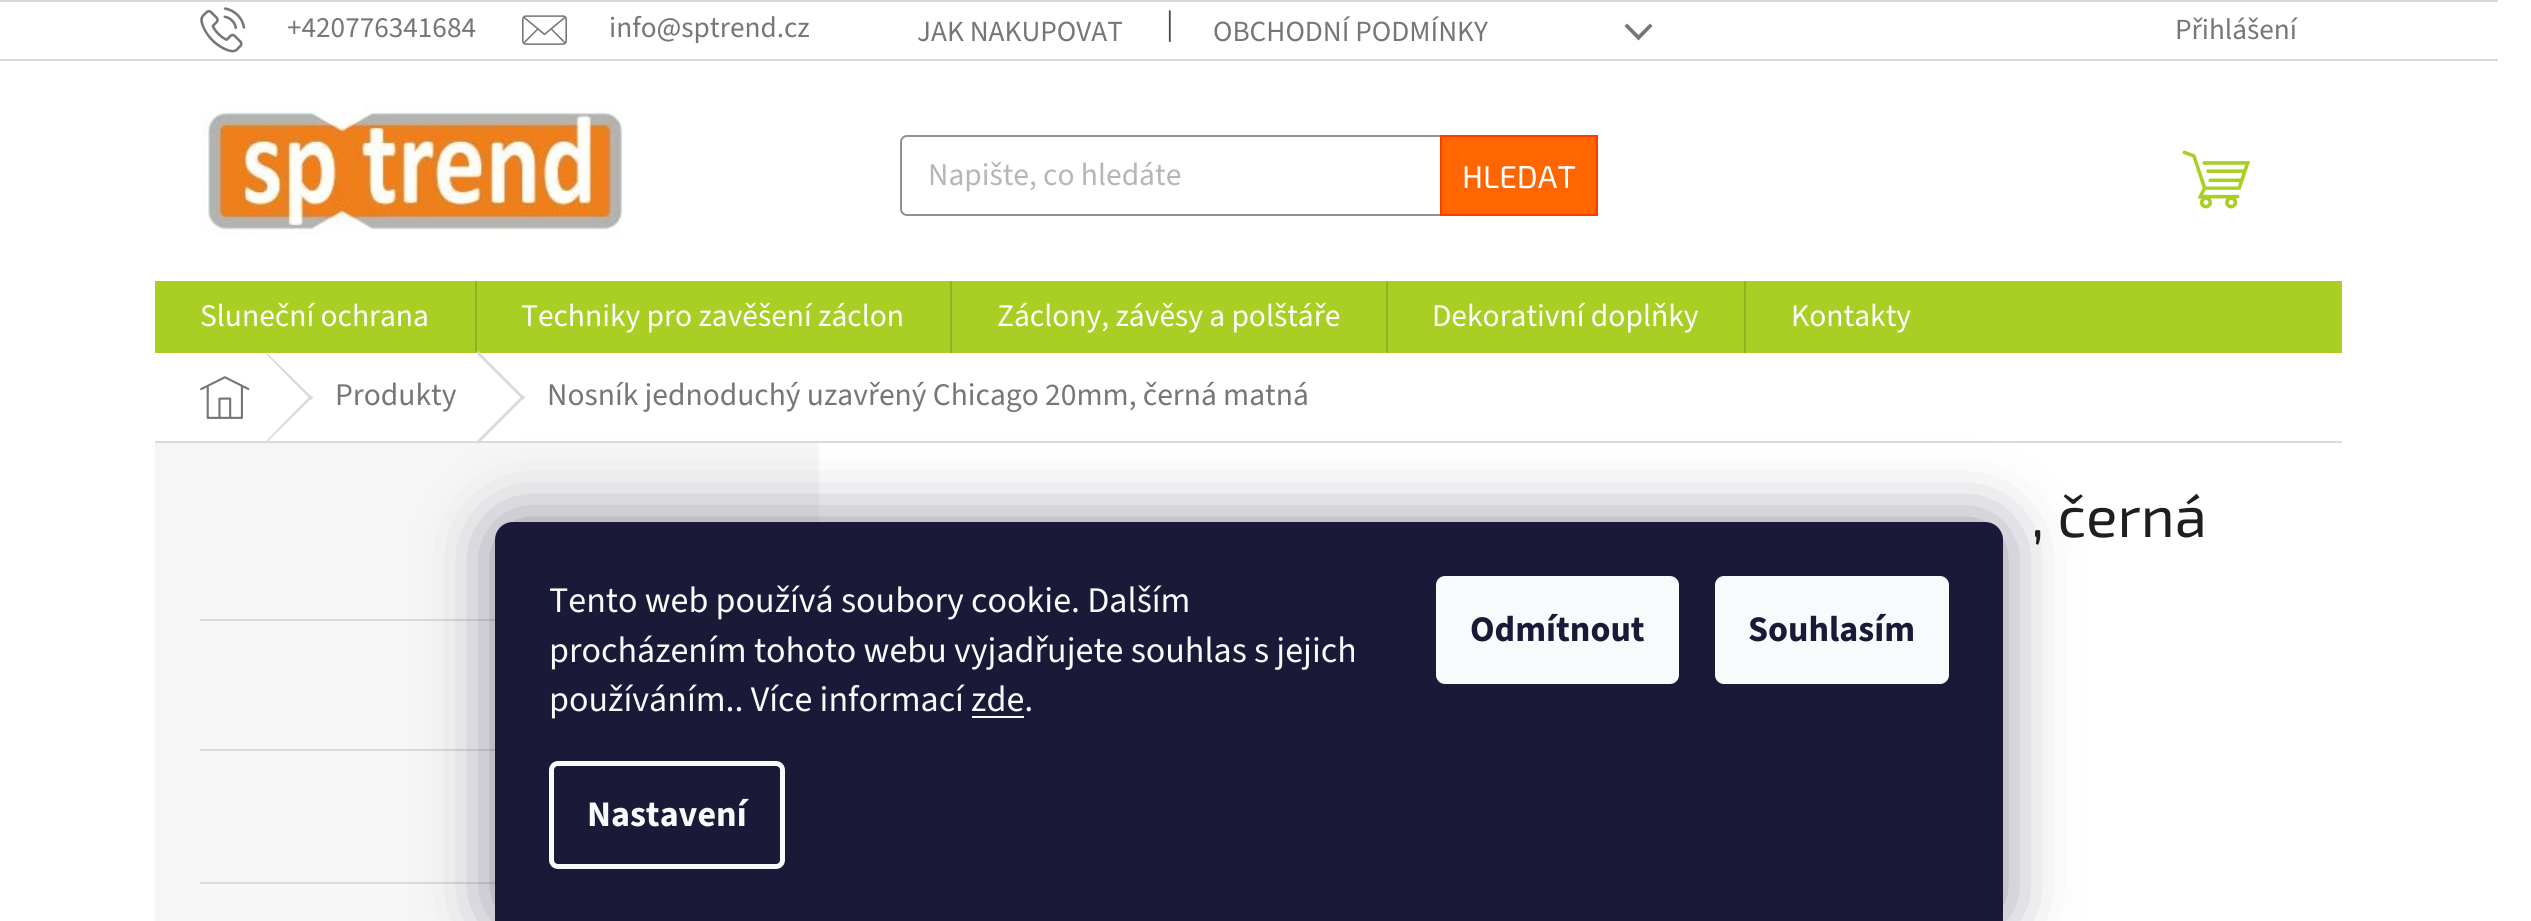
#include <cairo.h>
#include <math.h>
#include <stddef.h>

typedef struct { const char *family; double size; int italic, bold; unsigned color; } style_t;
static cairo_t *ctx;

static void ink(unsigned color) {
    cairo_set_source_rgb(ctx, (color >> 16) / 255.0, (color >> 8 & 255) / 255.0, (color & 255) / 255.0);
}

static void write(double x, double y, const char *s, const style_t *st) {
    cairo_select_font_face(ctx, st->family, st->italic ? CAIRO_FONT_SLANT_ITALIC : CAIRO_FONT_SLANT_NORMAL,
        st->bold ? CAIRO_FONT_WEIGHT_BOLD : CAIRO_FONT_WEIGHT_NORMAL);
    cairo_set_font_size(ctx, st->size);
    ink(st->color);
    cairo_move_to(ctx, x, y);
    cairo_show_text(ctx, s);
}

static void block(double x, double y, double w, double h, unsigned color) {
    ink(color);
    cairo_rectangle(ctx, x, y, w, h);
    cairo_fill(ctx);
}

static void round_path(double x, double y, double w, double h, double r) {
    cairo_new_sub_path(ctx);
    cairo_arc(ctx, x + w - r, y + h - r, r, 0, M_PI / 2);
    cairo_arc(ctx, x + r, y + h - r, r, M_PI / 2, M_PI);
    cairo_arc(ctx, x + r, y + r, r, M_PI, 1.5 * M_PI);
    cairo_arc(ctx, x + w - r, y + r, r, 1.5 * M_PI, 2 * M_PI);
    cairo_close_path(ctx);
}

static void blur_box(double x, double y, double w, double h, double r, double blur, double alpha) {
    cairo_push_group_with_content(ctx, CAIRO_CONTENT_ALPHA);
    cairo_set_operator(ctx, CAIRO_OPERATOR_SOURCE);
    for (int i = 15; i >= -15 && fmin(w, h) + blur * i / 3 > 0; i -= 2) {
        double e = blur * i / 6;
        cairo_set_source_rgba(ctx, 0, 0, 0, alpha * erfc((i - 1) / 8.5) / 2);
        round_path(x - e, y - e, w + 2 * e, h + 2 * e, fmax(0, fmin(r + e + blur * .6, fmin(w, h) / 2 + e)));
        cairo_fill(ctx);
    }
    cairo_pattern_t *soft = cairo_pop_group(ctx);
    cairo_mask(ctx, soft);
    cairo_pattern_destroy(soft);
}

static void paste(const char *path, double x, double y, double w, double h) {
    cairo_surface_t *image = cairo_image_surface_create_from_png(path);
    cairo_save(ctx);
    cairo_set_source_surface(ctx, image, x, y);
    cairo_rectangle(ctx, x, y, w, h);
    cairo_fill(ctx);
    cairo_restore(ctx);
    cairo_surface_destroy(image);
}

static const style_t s1 = {"Source Sans 3", 29.25, 0, 0, 0x767676};
static const style_t s2 = {"Source Sans 3", 31.5, 0, 0, 0x4d4d4d};
static const style_t s3 = {"Source Sans 3", 31.5, 0, 0, 0xb6b6b6};
static const style_t s4 = {"Exo 2", 31.5, 0, 0, 0xffffff};
static const style_t s5 = {"Source Sans 3", 31.5, 0, 0, 0xffffff};
static const style_t s6 = {"Source Sans 3", 31.5, 0, 0, 0x767676};
static const style_t s7 = {"Exo 2", 58.5, 0, 0, 0x1f1f1f};
static const style_t s8 = {"Source Sans 3", 36, 0, 0, 0xf8fafb};
static const style_t s9 = {"Source Sans 3", 36, 0, 1, 0xf8fafb};
static const style_t s10 = {"Source Sans 3", 36, 0, 1, 0x1a1937};

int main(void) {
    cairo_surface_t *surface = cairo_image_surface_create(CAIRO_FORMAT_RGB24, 2531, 921);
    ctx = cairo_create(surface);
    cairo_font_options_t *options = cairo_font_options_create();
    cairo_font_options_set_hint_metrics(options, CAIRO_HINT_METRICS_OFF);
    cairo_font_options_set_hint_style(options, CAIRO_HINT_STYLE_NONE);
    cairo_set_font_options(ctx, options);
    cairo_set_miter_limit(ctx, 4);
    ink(0xffffff);
    cairo_paint(ctx);
    block(0, 0, 2498, 2, 0xdadada);
    block(0, 59, 2498, 2, 0xdadada);
    paste("pic1.png", 200, 7, 46, 46);
    write(287, 37, "+420776341684", &s1);
    paste("pic2.png", 522, 15, 45, 30);
    write(609, 37, "info@sptrend.cz", &s1);
    write(917, 41, "JAK NAKUPOVAT", &s1);
    write(1166, 34, "|", &s2);
    write(1213, 41, "OBCHODNÍ PODMÍNKY", &s1);
    cairo_new_path(ctx);
    cairo_move_to(ctx, 1624.5, 26);
    cairo_line_to(ctx, 1627, 23.5);
    cairo_line_to(ctx, 1638.5, 35);
    cairo_line_to(ctx, 1650, 23.5);
    cairo_line_to(ctx, 1652.5, 26);
    cairo_line_to(ctx, 1638.5, 40.5);
    cairo_close_path(ctx);
    cairo_fill(ctx);
    write(2175, 39, "Přihlášení", &s1);
    paste("pic3.png", 201, 104, 422, 130);
    round_path(901, 136, 696, 79, 6);
    ink(0x919191);
    cairo_stroke(ctx);
    write(928, 185, "Napište, co hledáte", &s3);
    ink(0xff6600);
    cairo_rectangle(ctx, 1441, 136, 156, 79);
    cairo_fill_preserve(ctx);
    ink(0xff3c00);
    cairo_stroke(ctx);
    write(1462, 188, "HLEDAT", &s4);
    paste("pic4.png", 2182, 150, 68, 59);
    block(155, 281, 2187, 72, 0xaacf24);
    write(200, 326, "Sluneční ochrana", &s5);
    block(475, 281, 2, 72, 0x92b21f);
    write(521, 326, "Techniky pro zavěšení záclon", &s5);
    block(950, 281, 2, 72, 0x92b21f);
    write(997, 326, "Záclony, závěsy a polštáře", &s5);
    block(1386, 281, 2, 72, 0x92b21f);
    write(1432, 326, "Dekorativní doplňky", &s5);
    block(1744, 281, 2, 72, 0x92b21f);
    write(1791, 326, "Kontakty", &s5);
    block(155, 441, 2187, 2, 0xdadada);
    paste("pic5.png", 200, 376, 50, 43);
    cairo_new_path(ctx);
    cairo_move_to(ctx, 266, 354);
    cairo_line_to(ctx, 267, 353);
    cairo_line_to(ctx, 313, 398);
    cairo_line_to(ctx, 311, 400);
    cairo_close_path(ctx);
    cairo_fill(ctx);
    cairo_new_path(ctx);
    cairo_move_to(ctx, 311, 395);
    cairo_line_to(ctx, 313, 397);
    cairo_line_to(ctx, 267, 442);
    cairo_line_to(ctx, 266, 441);
    cairo_close_path(ctx);
    cairo_fill(ctx);
    write(335, 405, "Produkty", &s6);
    ink(0xdadada);
    cairo_new_path(ctx);
    cairo_move_to(ctx, 476, 353);
    cairo_line_to(ctx, 478, 351);
    cairo_line_to(ctx, 525, 398);
    cairo_line_to(ctx, 523, 400);
    cairo_close_path(ctx);
    cairo_fill(ctx);
    block(155, 443, 664, 478, 0xf6f6f6);
    ink(0xdadada);
    cairo_new_path(ctx);
    cairo_move_to(ctx, 523, 395);
    cairo_line_to(ctx, 525, 397);
    cairo_line_to(ctx, 478, 444);
    cairo_line_to(ctx, 476, 442);
    cairo_close_path(ctx);
    cairo_fill(ctx);
    write(547, 405, "Nosník jednoduchý uzavřený Chicago 20mm, černá matná", &s6);
    block(200, 619, 295, 2, 0xdadada);
    block(200, 749, 295, 2, 0xdadada);
    block(200, 882, 295, 2, 0xdadada);
    write(2031, 537, ", černá", &s7);
    ink(0x1b1939);
    blur_box(495, 522, 1508, 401, 18, 34, 0.5);
    ink(0x1a1937);
    cairo_new_path(ctx);
    cairo_move_to(ctx, 513, 522);
    cairo_line_to(ctx, 1985, 522);
    cairo_curve_to(ctx, 1995, 522, 2003, 530, 2003, 540);
    cairo_line_to(ctx, 2003, 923);
    cairo_line_to(ctx, 495, 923);
    cairo_line_to(ctx, 495, 540);
    cairo_curve_to(ctx, 495, 530, 503, 522, 513, 522);
    cairo_close_path(ctx);
    cairo_fill(ctx);
    write(549, 612, "Tento web používá soubory cookie. Dalším", &s8);
    write(549, 662, "procházením tohoto webu vyjadřujete souhlas s jejich", &s8);
    write(549, 711, "používáním.. Více informací zde.", &s8);
    block(972, 716, 52, 2, 0xf8fafb);
    round_path(551.5, 763.5, 231, 103, 6.5);
    cairo_set_line_width(ctx, 5);
    cairo_stroke(ctx);
    write(587, 826, "Nastavení", &s9);
    round_path(1436, 576, 243, 108, 9);
    cairo_fill(ctx);
    write(1470, 641, "Odmítnout", &s10);
    ink(0xf8fafb);
    round_path(1715, 576, 234, 108, 9);
    cairo_fill(ctx);
    write(1748, 641, "Souhlasím", &s10);
    cairo_surface_write_to_png(surface, "screenshot.png");
    cairo_font_options_destroy(options);
    cairo_destroy(ctx);
    cairo_surface_destroy(surface);
    return 0;
}
